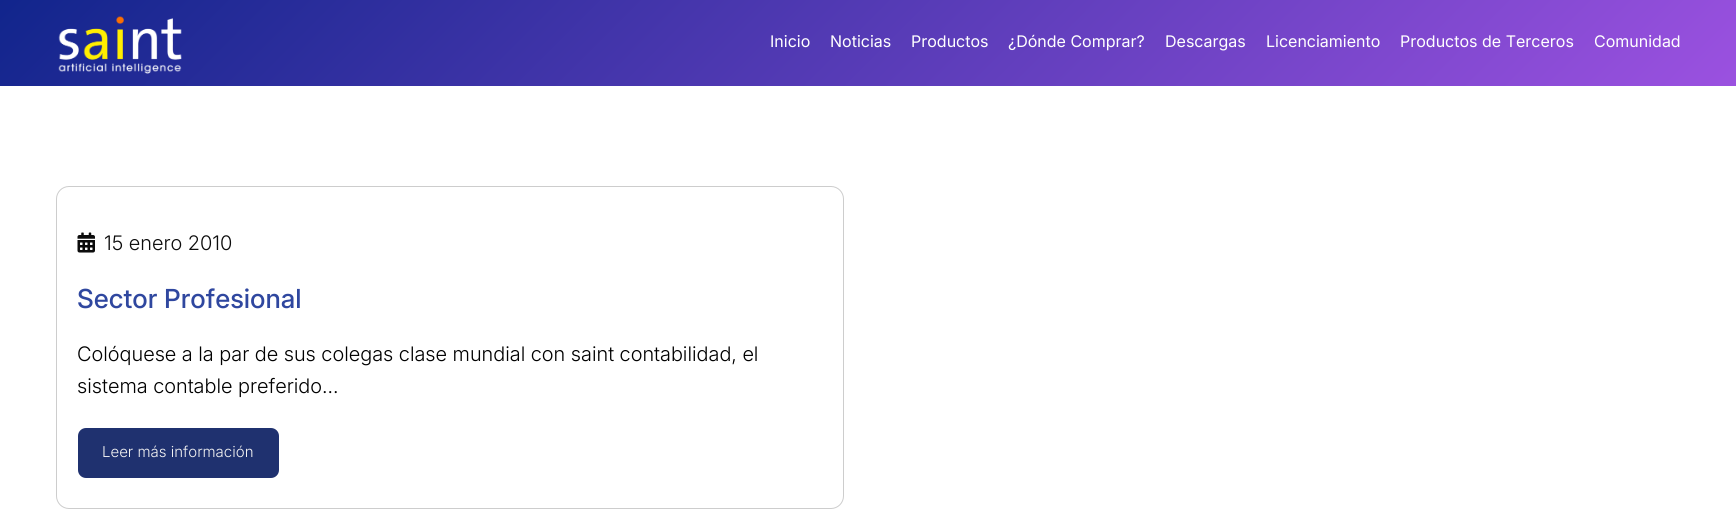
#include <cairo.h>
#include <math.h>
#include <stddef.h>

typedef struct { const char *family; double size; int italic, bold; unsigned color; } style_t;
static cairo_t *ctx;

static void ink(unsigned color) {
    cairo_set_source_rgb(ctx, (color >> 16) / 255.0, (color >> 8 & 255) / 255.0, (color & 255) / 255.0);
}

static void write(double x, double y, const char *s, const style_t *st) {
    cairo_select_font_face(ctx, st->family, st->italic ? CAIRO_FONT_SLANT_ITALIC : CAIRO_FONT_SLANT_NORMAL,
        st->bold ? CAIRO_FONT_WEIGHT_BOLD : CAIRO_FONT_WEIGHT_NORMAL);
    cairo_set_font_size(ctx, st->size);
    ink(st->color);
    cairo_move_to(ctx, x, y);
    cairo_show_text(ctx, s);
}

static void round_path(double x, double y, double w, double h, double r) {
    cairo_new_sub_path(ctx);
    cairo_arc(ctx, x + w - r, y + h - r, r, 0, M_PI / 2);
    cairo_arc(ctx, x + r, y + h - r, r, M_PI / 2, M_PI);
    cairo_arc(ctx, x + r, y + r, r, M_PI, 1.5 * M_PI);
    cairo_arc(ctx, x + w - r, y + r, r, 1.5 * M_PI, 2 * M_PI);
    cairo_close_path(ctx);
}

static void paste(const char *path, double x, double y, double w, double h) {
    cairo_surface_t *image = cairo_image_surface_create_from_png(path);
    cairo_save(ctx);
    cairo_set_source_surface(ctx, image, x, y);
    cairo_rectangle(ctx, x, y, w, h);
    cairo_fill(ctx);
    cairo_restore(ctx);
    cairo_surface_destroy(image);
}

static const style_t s1 = {"Inter", 16, 0, 0, 0xffffff};
static const style_t s2 = {"Inter Light", 20, 0, 0, 0x0c0c0c};
static const style_t s3 = {"Inter Medium", 26.25, 0, 0, 0x2f479f};
static const style_t s4 = {"Inter Light", 20, 0, 0, 0x000000};
static const style_t s5 = {"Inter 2 Light", 15, 0, 0, 0xf2f2f2};

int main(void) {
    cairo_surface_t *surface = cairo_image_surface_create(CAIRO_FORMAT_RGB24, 1736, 513);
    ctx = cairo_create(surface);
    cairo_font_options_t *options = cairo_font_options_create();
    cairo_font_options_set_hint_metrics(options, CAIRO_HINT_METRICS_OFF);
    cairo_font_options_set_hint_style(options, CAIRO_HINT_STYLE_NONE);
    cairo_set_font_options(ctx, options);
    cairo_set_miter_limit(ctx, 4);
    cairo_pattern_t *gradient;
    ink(0xffffff);
    cairo_paint(ctx);
    gradient = cairo_pattern_create_linear(412, -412, 1324, 499);
    cairo_pattern_add_color_stop_rgba(gradient, 0, 0.067, 0.145, 0.549, 1);
    cairo_pattern_add_color_stop_rgba(gradient, 1, 0.608, 0.318, 0.878, 1);
    cairo_set_source(ctx, gradient);
    cairo_pattern_destroy(gradient);
    cairo_rectangle(ctx, 0, 0, 1736, 86);
    cairo_fill(ctx);
    paste("pic1.png", 58, 16, 124, 58);
    write(770, 47, "Inicio", &s1);
    write(830, 47, "Noticias", &s1);
    write(911, 47, "Productos", &s1);
    write(1008, 47, "¿Dónde Comprar?", &s1);
    write(1165, 47, "Descargas", &s1);
    write(1266, 47, "Licenciamiento", &s1);
    write(1400, 47, "Productos de Terceros", &s1);
    write(1594, 47, "Comunidad", &s1);
    round_path(56.5, 186.5, 787, 322, 12.5);
    ink(0xcdcdcd);
    cairo_set_line_width(ctx, 1);
    cairo_stroke(ctx);
    paste("pic2.png", 77, 232, 18, 21);
    write(104, 250, "15 enero 2010", &s2);
    write(77, 308, "Sector Profesional", &s3);
    write(77, 361, "Colóquese a la par de sus colegas clase mundial con saint contabilidad, el", &s4);
    write(77, 393, "sistema contable preferido…", &s4);
    ink(0x1f316f);
    round_path(78, 428, 201, 50, 8);
    cairo_fill(ctx);
    write(102, 457, "Leer más información", &s5);
    cairo_surface_write_to_png(surface, "screenshot.png");
    cairo_font_options_destroy(options);
    cairo_destroy(ctx);
    cairo_surface_destroy(surface);
    return 0;
}
